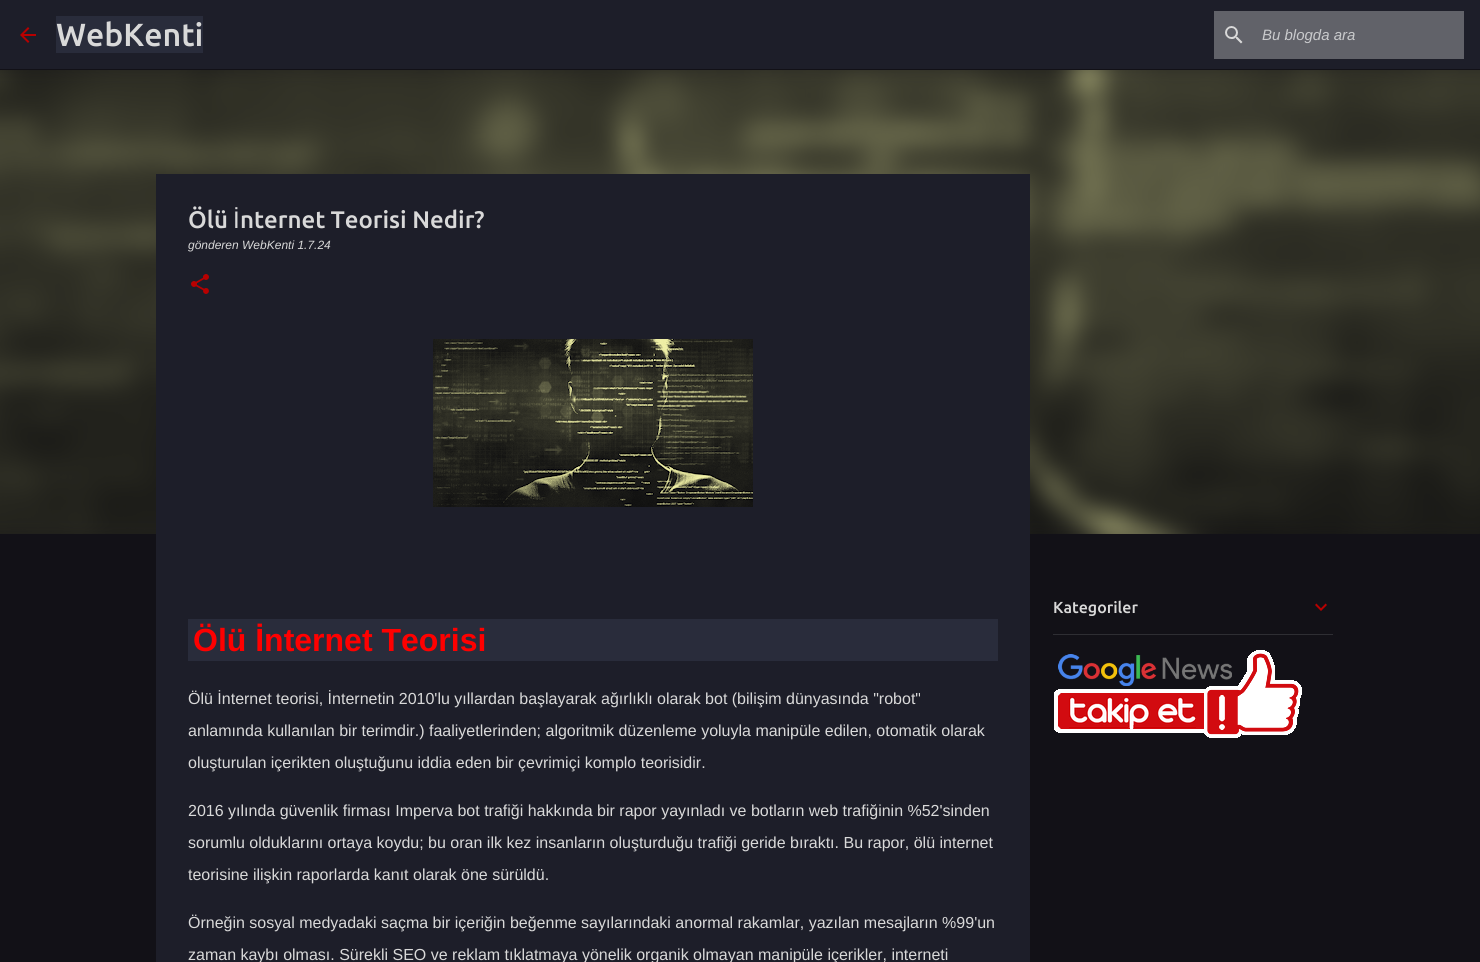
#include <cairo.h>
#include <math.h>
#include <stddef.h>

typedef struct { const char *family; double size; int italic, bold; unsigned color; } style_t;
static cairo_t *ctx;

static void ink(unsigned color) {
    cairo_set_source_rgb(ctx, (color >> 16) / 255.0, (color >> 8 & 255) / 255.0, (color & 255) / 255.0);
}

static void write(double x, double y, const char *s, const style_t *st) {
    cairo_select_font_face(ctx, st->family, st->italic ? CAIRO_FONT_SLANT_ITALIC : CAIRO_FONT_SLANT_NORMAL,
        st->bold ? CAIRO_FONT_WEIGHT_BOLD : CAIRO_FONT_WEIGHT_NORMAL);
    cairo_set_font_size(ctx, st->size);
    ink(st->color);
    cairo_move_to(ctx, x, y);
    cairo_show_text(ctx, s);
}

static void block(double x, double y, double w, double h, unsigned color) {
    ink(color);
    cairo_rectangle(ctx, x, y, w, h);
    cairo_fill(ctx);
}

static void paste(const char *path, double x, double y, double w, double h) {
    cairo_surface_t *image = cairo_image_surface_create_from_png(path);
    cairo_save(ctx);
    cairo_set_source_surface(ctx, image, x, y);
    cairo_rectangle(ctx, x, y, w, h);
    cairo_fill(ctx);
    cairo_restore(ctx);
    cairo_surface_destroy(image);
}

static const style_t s1 = {"Ubuntu Medium", 32, 0, 0, 0xd9d9d9};
static const style_t s2 = {"Liberation Sans", 15, 1, 0, 0xc9cacc};
static const style_t s3 = {"Ubuntu Medium", 24, 0, 0, 0xd9d9d9};
static const style_t s4 = {"Liberation Sans", 24, 0, 0, 0xd9d9d9};
static const style_t s5 = {"Liberation Sans", 12, 1, 0, 0xd9d9d9};
static const style_t s6 = {"Liberation Sans", 32, 0, 1, 0xff0000};
static const style_t s7 = {"Liberation Sans", 16, 0, 0, 0xd9d9d9};
static const style_t s8 = {"Ubuntu Medium", 16, 0, 0, 0xd9d9d9};

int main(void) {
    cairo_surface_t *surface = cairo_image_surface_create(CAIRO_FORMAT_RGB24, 1480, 962);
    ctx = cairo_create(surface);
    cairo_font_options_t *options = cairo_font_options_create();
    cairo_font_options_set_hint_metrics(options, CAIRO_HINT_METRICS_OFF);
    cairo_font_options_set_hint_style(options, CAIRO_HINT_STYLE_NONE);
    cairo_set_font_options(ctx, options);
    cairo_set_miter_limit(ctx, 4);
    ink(0x121117);
    cairo_paint(ctx);
    block(0, 0, 1480, 69, 0x1d1e29);
    paste("pic1.png", 20, 27, 16, 16);
    block(56, 16, 147, 37, 0x292c3b);
    write(56, 46, "WebKenti", &s1);
    block(1214, 11, 250, 48, 0x616269);
    paste("pic2.png", 1225, 26, 18, 18);
    write(1262, 40, "Bu blogda ara", &s2);
    paste("pic7.png", 0, 70, 1480, 464);
    block(156, 174, 874, 788, 0x1d1e29);
    write(188, 228, "Ölü", &s3);
    write(233, 228, "İ", &s4);
    write(240, 228, "nternet Teorisi Nedir?", &s3);
    write(188, 249, "gönderen WebKenti 1.7.24", &s5);
    paste("pic3.png", 191, 274, 18, 20);
    paste("pic4.png", 433, 339, 320, 168);
    block(188, 619, 810, 42, 0x292c3b);
    write(193, 651, "Ölü İnternet Teorisi", &s6);
    write(188, 704, "Ölü İnternet teorisi, İnternetin 2010'lu yıllardan başlayarak ağırlıklı olarak bot (bilişim dünyasında \"robot\"", &s7);
    write(188, 736, "anlamında kullanılan bir terimdir.) faaliyetlerinden; algoritmik düzenleme yoluyla manipüle edilen, otomatik olarak", &s7);
    write(188, 768, "oluşturulan içerikten oluştuğunu iddia eden bir çevrimiçi komplo teorisidir.", &s7);
    write(188, 816, "2016 yılında güvenlik firması Imperva bot trafiği hakkında bir rapor yayınladı ve botların web trafiğinin %52'sinden", &s7);
    write(188, 848, "sorumlu olduklarını ortaya koydu; bu oran ilk kez insanların oluşturduğu trafiği geride bıraktı. Bu rapor, ölü internet", &s7);
    write(188, 880, "teorisine ilişkin raporlarda kanıt olarak öne sürüldü.", &s7);
    write(188, 928, "Örneğin sosyal medyadaki saçma bir içeriğin beğenme sayılarındaki anormal rakamlar, yazılan mesajların %99'un", &s7);
    write(188, 960, "zaman kaybı olması. Sürekli SEO ve reklam tıklatmaya yönelik organik olmayan manipüle içerikler, interneti", &s7);
    write(1053, 613, "Kategoriler", &s8);
    paste("pic5.png", 1315, 603, 12, 8);
    block(1053, 634, 280, 1, 0x2e2e33);
    paste("pic6.png", 1054, 650, 248, 88);
    cairo_surface_write_to_png(surface, "screenshot.png");
    cairo_font_options_destroy(options);
    cairo_destroy(ctx);
    cairo_surface_destroy(surface);
    return 0;
}
